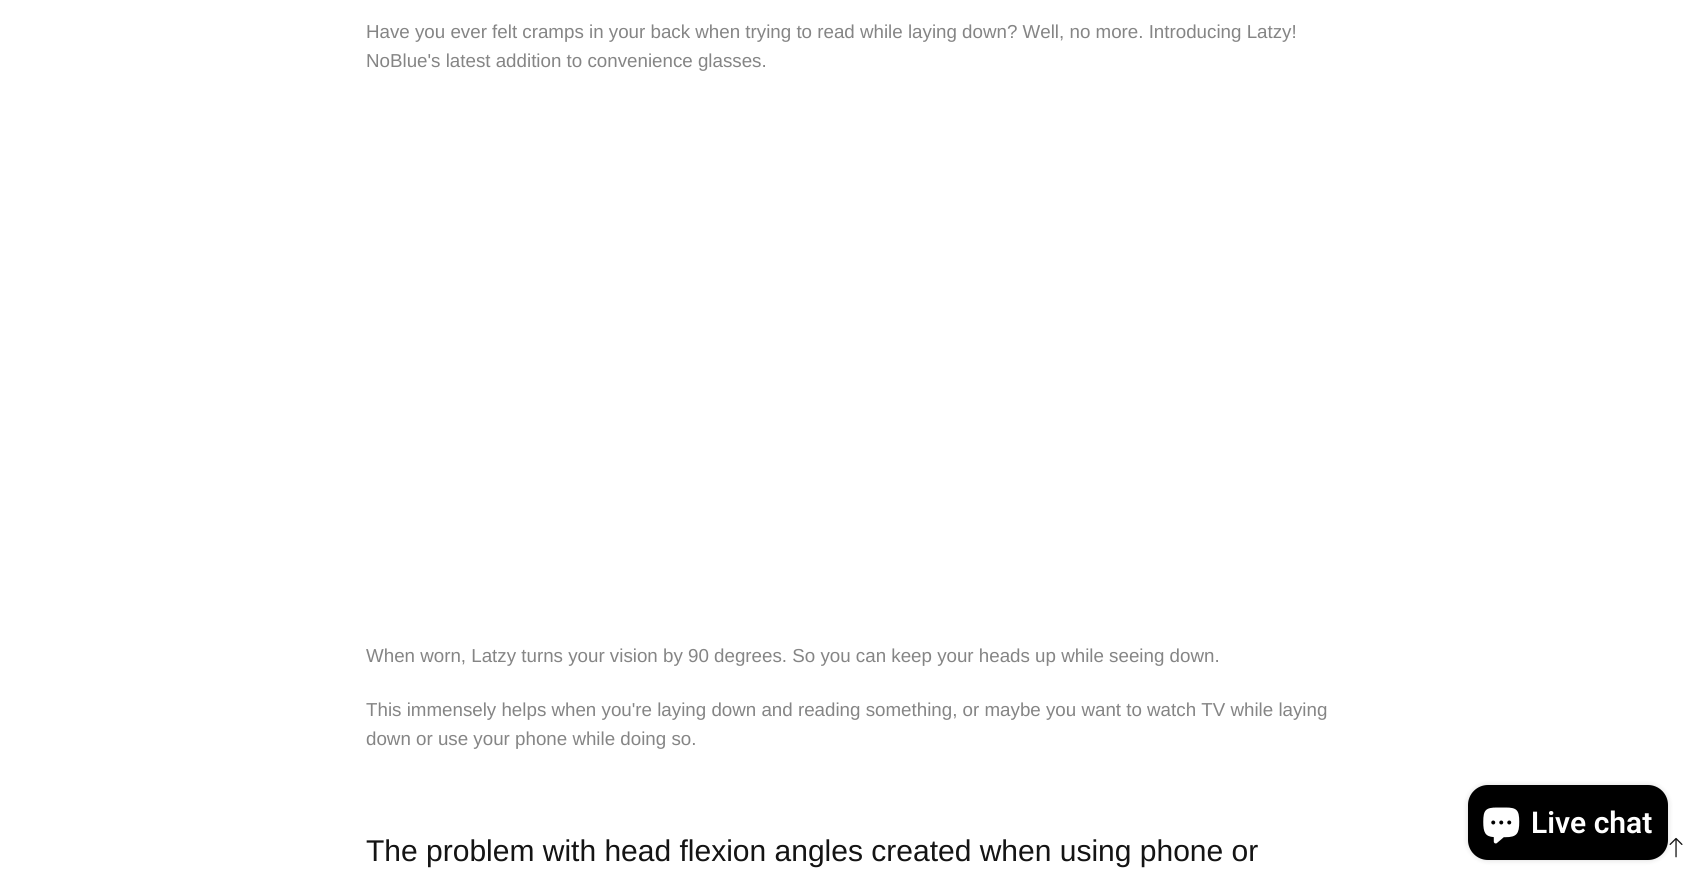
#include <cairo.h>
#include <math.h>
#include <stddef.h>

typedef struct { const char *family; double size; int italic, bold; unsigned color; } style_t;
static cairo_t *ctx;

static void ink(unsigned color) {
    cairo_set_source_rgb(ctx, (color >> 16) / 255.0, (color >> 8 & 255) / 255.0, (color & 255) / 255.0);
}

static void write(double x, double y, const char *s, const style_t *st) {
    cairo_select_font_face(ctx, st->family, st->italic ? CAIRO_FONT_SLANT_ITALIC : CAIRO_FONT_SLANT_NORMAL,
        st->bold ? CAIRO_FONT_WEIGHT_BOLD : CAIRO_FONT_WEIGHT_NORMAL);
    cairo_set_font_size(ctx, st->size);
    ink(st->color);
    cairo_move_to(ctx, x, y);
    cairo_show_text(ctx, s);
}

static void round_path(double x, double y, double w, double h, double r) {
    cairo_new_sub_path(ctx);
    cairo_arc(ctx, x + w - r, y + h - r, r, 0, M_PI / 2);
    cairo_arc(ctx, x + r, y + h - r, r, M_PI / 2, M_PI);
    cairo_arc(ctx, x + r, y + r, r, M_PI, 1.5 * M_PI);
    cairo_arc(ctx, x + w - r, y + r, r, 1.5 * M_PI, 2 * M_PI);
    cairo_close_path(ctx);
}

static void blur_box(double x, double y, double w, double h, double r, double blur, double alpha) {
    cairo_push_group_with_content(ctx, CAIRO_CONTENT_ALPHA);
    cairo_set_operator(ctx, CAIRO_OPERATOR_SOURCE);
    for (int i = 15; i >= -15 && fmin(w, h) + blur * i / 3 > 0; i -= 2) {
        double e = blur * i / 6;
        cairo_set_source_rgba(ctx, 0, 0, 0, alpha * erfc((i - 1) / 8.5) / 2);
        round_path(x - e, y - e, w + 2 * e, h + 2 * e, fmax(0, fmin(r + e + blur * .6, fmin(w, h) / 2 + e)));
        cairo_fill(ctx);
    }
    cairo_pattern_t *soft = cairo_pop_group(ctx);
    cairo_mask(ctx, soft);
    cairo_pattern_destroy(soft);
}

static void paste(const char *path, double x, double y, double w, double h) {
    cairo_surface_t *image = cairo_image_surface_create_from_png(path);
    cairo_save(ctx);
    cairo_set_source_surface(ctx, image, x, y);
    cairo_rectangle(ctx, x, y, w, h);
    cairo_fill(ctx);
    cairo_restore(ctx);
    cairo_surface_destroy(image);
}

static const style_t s1 = {"Arimo", 18.75, 0, 0, 0x858585};
static const style_t s2 = {"Arimo", 30, 0, 0, 0x141414};
static const style_t s3 = {"Roboto SemiBold", 30, 0, 0, 0xffffff};

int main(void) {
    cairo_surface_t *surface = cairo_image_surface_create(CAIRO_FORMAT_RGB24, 1695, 886);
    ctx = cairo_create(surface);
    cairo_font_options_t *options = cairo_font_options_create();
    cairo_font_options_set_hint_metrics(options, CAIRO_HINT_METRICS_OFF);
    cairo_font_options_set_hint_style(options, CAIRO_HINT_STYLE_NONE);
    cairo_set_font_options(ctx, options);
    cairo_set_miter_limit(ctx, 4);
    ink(0xffffff);
    cairo_paint(ctx);
    write(366, 38, "Have you ever felt cramps in your back when trying to read while laying down? Well, no more. Introducing Latzy!", &s1);
    write(366, 67, "NoBlue's latest addition to convenience glasses.", &s1);
    write(366, 662, "When worn, Latzy turns your vision by 90 degrees. So you can keep your heads up while seeing down.", &s1);
    write(366, 716, "This immensely helps when you're laying down and reading something, or maybe you want to watch TV while laying", &s1);
    write(366, 745, "down or use your phone while doing so.", &s1);
    write(366, 861, "The problem with head flexion angles created when using phone or", &s2);
    paste("pic2.png", 1669, 837, 14, 21);
    ink(0x000000);
    blur_box(1468, 785, 200, 75, 20, 3, 0.15);
    ink(0x000000);
    round_path(1468, 785, 200, 75, 20);
    cairo_fill(ctx);
    paste("pic1.png", 1483, 807, 37, 37);
    write(1531, 833, "Live chat", &s3);
    cairo_surface_write_to_png(surface, "screenshot.png");
    cairo_font_options_destroy(options);
    cairo_destroy(ctx);
    cairo_surface_destroy(surface);
    return 0;
}
